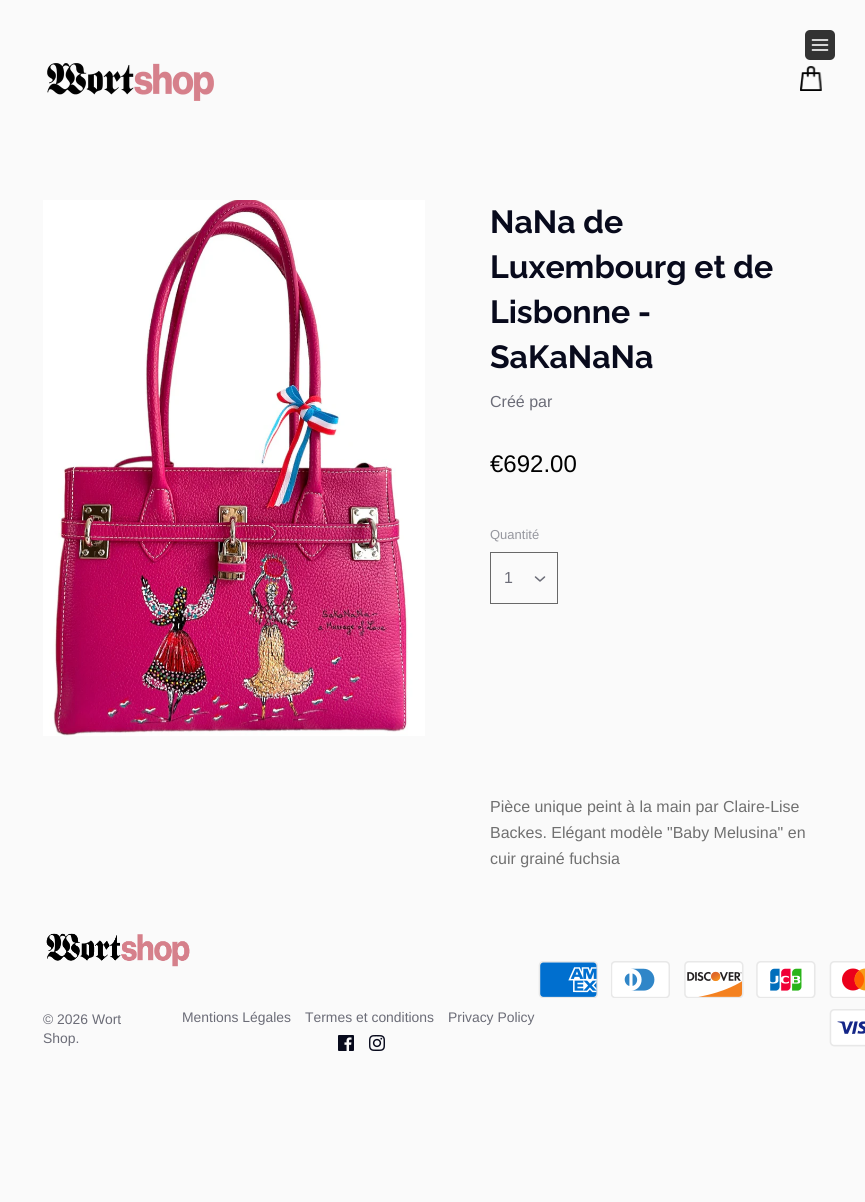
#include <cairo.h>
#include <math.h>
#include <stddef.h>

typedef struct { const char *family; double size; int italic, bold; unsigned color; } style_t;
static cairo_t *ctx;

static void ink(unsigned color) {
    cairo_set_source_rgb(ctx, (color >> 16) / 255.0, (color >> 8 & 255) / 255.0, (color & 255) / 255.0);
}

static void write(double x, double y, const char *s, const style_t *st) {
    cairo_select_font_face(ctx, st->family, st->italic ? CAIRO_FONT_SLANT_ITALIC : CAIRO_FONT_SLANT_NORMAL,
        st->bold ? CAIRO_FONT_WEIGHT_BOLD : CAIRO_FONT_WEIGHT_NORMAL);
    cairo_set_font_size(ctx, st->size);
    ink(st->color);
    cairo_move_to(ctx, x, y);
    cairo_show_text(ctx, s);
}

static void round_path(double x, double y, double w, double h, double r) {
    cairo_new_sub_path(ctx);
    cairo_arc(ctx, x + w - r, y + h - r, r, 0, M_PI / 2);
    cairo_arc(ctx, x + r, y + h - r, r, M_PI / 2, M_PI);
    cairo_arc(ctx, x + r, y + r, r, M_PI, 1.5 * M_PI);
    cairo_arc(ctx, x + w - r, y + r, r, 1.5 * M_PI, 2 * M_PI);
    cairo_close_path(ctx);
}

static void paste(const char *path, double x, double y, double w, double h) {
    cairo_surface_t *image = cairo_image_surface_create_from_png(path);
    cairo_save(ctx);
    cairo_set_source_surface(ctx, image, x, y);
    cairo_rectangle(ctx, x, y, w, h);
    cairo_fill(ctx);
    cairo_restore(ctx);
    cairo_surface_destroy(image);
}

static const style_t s1 = {"Raleway", 32, 0, 1, 0x080a1c};
static const style_t s2 = {"Liberation Sans", 16, 0, 0, 0x6b6c77};
static const style_t s3 = {"Liberation Sans", 24, 0, 0, 0x000000};
static const style_t s4 = {"Liberation Sans", 13, 0, 0, 0x96979e};
static const style_t s5 = {"Liberation Sans", 16, 0, 0, 0x707070};
static const style_t s6 = {"Liberation Sans", 13.9, 0, 0, 0x6b6c77};

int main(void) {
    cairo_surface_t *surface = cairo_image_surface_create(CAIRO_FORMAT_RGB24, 865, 1202);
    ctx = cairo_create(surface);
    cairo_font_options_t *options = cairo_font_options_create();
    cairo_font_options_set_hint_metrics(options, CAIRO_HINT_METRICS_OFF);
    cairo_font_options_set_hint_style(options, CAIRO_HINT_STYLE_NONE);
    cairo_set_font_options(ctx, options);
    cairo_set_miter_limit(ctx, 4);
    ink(0xfafafa);
    cairo_paint(ctx);
    ink(0x333333);
    round_path(805, 30, 30, 30, 5);
    cairo_fill(ctx);
    paste("pic1.png", 811, 39, 18, 12);
    paste("pic2.png", 47, 63, 167, 38);
    paste("pic3.png", 800, 66, 22, 25);
    paste("pic4.png", 43, 200, 382, 536);
    write(490, 233, "NaNa de", &s1);
    write(490, 278, "Luxembourg et de", &s1);
    write(490, 323, "Lisbonne -", &s1);
    write(490, 368, "SaKaNaNa", &s1);
    write(490, 407, "Créé par", &s2);
    write(490, 472, "€692.00", &s3);
    write(490, 539, "Quantité", &s4);
    cairo_rectangle(ctx, 490.5, 552.5, 67, 51);
    ink(0x686868);
    cairo_set_line_width(ctx, 1);
    cairo_stroke(ctx);
    write(504, 583, "1", &s2);
    cairo_new_path(ctx);
    cairo_move_to(ctx, 535.5, 577);
    cairo_line_to(ctx, 540, 581);
    cairo_line_to(ctx, 544.5, 577);
    cairo_set_line_width(ctx, 1.5);
    cairo_set_line_cap(ctx, CAIRO_LINE_CAP_ROUND);
    cairo_set_line_join(ctx, CAIRO_LINE_JOIN_ROUND);
    cairo_stroke(ctx);
    write(490, 812, "Pièce unique peint à la main par Claire-Lise", &s5);
    write(490, 838, "Backes. Elégant modèle \"Baby Melusina\" en", &s5);
    write(490, 864, "cuir grainé fuchsia", &s5);
    paste("pic5.png", 46, 933, 144, 34);
    write(43, 1024, "© 2026 Wort", &s6);
    write(43, 1043, "Shop.", &s6);
    write(182, 1022, "Mentions Légales", &s6);
    write(305, 1022, "Termes et conditions", &s6);
    write(448, 1022, "Privacy Policy", &s6);
    paste("pic6.png", 338, 1035, 16, 16);
    paste("pic7.png", 369, 1035, 16, 16);
    paste("pic8.png", 538, 961, 60, 37);
    paste("pic9.png", 611, 961, 59, 37);
    paste("pic10.png", 684, 961, 60, 37);
    paste("pic11.png", 756, 961, 60, 37);
    paste("pic12.png", 829, 961, 36, 37);
    paste("pic13.png", 829, 1009, 36, 38);
    cairo_surface_write_to_png(surface, "screenshot.png");
    cairo_font_options_destroy(options);
    cairo_destroy(ctx);
    cairo_surface_destroy(surface);
    return 0;
}
